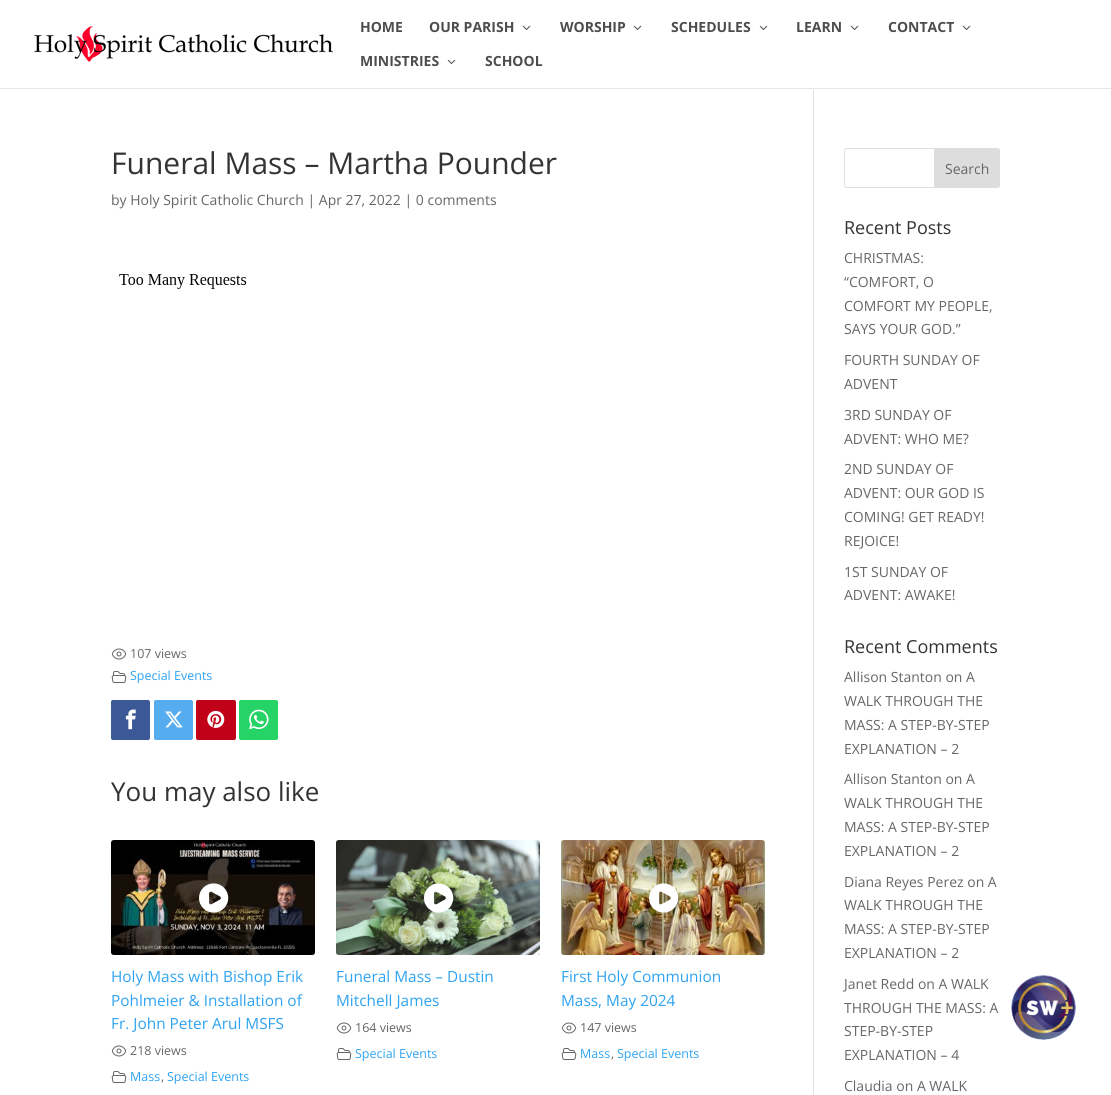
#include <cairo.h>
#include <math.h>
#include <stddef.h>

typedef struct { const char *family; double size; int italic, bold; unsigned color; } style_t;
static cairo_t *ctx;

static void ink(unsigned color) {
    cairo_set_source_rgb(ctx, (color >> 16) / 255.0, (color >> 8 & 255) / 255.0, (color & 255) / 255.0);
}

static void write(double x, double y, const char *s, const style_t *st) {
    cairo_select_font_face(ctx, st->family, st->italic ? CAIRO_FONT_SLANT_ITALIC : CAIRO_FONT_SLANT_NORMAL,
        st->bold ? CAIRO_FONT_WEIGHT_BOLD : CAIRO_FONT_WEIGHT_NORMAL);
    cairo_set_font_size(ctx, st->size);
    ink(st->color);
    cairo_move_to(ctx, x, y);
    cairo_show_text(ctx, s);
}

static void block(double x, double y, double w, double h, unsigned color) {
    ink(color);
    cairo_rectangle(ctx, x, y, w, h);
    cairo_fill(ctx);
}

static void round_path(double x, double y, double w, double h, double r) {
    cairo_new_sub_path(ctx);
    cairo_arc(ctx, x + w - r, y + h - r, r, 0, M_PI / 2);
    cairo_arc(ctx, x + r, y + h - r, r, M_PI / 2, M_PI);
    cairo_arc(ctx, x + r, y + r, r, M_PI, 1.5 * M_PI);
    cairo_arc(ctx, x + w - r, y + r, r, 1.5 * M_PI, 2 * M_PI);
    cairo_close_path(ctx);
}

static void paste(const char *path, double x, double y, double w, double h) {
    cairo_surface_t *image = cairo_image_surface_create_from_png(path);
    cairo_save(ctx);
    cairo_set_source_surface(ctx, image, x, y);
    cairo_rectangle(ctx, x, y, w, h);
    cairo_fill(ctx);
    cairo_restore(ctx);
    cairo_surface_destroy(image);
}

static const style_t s1 = {"Open Sans", 14, 0, 1, 0x4d4d4d};
static const style_t s2 = {"Open Sans", 30, 0, 0, 0x333333};
static const style_t s3 = {"Open Sans", 14, 0, 0, 0x666666};
static const style_t s4 = {"Open Sans", 12.5, 0, 0, 0x666666};
static const style_t s5 = {"Open Sans", 12.5, 0, 0, 0x2ea3f2};
static const style_t s6 = {"Open Sans", 26, 0, 0, 0x333333};
static const style_t s7 = {"Open Sans", 15.4, 0, 0, 0x2ea3f2};
static const style_t s8 = {"Open Sans", 18, 0, 0, 0x333333};

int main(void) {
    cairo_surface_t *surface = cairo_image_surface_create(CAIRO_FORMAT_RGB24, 1111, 1095);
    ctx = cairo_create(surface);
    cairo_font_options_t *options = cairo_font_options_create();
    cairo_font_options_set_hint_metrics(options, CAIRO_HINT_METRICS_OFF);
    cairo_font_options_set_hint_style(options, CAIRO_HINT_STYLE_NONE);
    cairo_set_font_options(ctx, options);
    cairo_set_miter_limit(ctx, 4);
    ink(0xffffff);
    cairo_paint(ctx);
    block(0, 88, 1111, 1, 0xe6e6e6);
    paste("pic1.png", 34, 26, 299, 36);
    write(360, 32, "HOME", &s1);
    write(429, 32, "OUR PARISH", &s1);
    paste("pic2.png", 522, 25, 9, 5);
    write(560, 32, "WORSHIP", &s1);
    paste("pic2.png", 633, 25, 9, 5);
    write(671, 32, "SCHEDULES", &s1);
    paste("pic2.png", 759, 25, 9, 5);
    write(796, 32, "LEARN", &s1);
    paste("pic2.png", 850, 25, 9, 5);
    write(888, 32, "CONTACT", &s1);
    paste("pic2.png", 962, 25, 9, 5);
    write(360, 66, "MINISTRIES", &s1);
    paste("pic2.png", 447, 59, 9, 5);
    write(485, 66, "SCHOOL", &s1);
    block(813, 90, 1, 1005, 0xe2e2e2);
    write(111, 174, "Funeral Mass – Martha Pounder", &s2);
    write(111, 205, "by Holy Spirit Catholic Church | Apr 27, 2022 | 0 comments", &s3);
    paste("pic3.png", 119, 274, 128, 15);
    paste("pic4.png", 111, 648, 16, 12);
    write(130, 658, "107 views", &s4);
    paste("pic5.png", 111, 671, 16, 12);
    write(130, 680, "Special Events", &s5);
    ink(0x3b5996);
    round_path(111, 700, 39, 40, 2);
    cairo_fill(ctx);
    paste("pic6.png", 125, 709, 11, 21);
    ink(0x55acee);
    round_path(154, 700, 39, 40, 2);
    cairo_fill(ctx);
    paste("pic7.png", 165, 711, 18, 17);
    ink(0xc00117);
    round_path(196, 700, 40, 40, 2);
    cairo_fill(ctx);
    paste("pic8.png", 207, 710, 18, 18);
    ink(0x25d366);
    round_path(239, 700, 39, 40, 2);
    cairo_fill(ctx);
    paste("pic9.png", 249, 709, 20, 21);
    write(111, 801, "You may also like", &s6);
    paste("pic10.png", 111, 840, 204, 115);
    paste("pic11.png", 199, 883, 30, 30);
    write(111, 982, "Holy Mass with Bishop Erik", &s7);
    write(111, 1006, "Pohlmeier & Installation of", &s7);
    write(111, 1029, "Fr. John Peter Arul MSFS", &s7);
    paste("pic4.png", 111, 1045, 16, 12);
    write(130, 1055, "218 views", &s4);
    paste("pic5.png", 111, 1071, 16, 12);
    write(130, 1081, "Mass", &s5);
    write(161, 1081, ",", &s4);
    write(167, 1081, "Special Events", &s5);
    paste("pic12.png", 336, 840, 204, 115);
    paste("pic13.png", 424, 883, 30, 30);
    write(336, 982, "Funeral Mass – Dustin", &s7);
    write(336, 1006, "Mitchell James", &s7);
    paste("pic4.png", 336, 1022, 16, 12);
    write(355, 1032, "164 views", &s4);
    paste("pic5.png", 336, 1048, 16, 12);
    write(355, 1058, "Special Events", &s5);
    paste("pic14.png", 561, 840, 204, 115);
    paste("pic15.png", 649, 883, 30, 30);
    write(561, 982, "First Holy Communion", &s7);
    write(561, 1006, "Mass, May 2024", &s7);
    paste("pic4.png", 561, 1022, 16, 12);
    write(580, 1032, "147 views", &s4);
    paste("pic5.png", 561, 1048, 16, 12);
    write(580, 1058, "Mass", &s5);
    write(611, 1058, ",", &s4);
    write(617, 1058, "Special Events", &s5);
    round_path(844.5, 148.5, 155, 39, 2.5);
    ink(0xdddddd);
    cairo_set_line_width(ctx, 1);
    cairo_stroke(ctx);
    cairo_new_path(ctx);
    cairo_move_to(ctx, 934.5, 148.5);
    cairo_line_to(ctx, 997, 148.5);
    cairo_curve_to(ctx, 998.5, 148.5, 999.5, 149.5, 999.5, 151);
    cairo_line_to(ctx, 999.5, 185);
    cairo_curve_to(ctx, 999.5, 186.5, 998.5, 187.5, 997, 187.5);
    cairo_line_to(ctx, 934.5, 187.5);
    cairo_close_path(ctx);
    cairo_fill_preserve(ctx);
    cairo_stroke(ctx);
    write(945, 174, "Search", &s3);
    write(844, 234, "Recent Posts", &s8);
    write(844, 263, "CHRISTMAS:", &s3);
    write(844, 287, "“COMFORT, O", &s3);
    write(844, 311, "COMFORT MY PEOPLE,", &s3);
    write(844, 334, "SAYS YOUR GOD.”", &s3);
    write(844, 365, "FOURTH SUNDAY OF", &s3);
    write(844, 389, "ADVENT", &s3);
    write(844, 420, "3RD SUNDAY OF", &s3);
    write(844, 444, "ADVENT: WHO ME?", &s3);
    write(844, 474, "2ND SUNDAY OF", &s3);
    write(844, 498, "ADVENT: OUR GOD IS", &s3);
    write(844, 522, "COMING! GET READY!", &s3);
    write(844, 546, "REJOICE!", &s3);
    write(844, 577, "1ST SUNDAY OF", &s3);
    write(844, 600, "ADVENT: AWAKE!", &s3);
    write(844, 653, "Recent Comments", &s8);
    write(844, 682, "Allison Stanton on A", &s3);
    write(844, 706, "WALK THROUGH THE", &s3);
    write(844, 730, "MASS: A STEP-BY-STEP", &s3);
    write(844, 754, "EXPLANATION – 2", &s3);
    write(844, 784, "Allison Stanton on A", &s3);
    write(844, 808, "WALK THROUGH THE", &s3);
    write(844, 832, "MASS: A STEP-BY-STEP", &s3);
    write(844, 856, "EXPLANATION – 2", &s3);
    write(844, 887, "Diana Reyes Perez on A", &s3);
    write(844, 910, "WALK THROUGH THE", &s3);
    write(844, 934, "MASS: A STEP-BY-STEP", &s3);
    write(844, 958, "EXPLANATION – 2", &s3);
    write(844, 989, "Janet Redd on A WALK", &s3);
    write(844, 1013, "THROUGH THE MASS: A", &s3);
    write(844, 1036, "STEP-BY-STEP", &s3);
    write(844, 1060, "EXPLANATION – 4", &s3);
    write(844, 1091, "Claudia on A WALK", &s3);
    paste("pic16.png", 1011, 975, 65, 65);
    cairo_surface_write_to_png(surface, "screenshot.png");
    cairo_font_options_destroy(options);
    cairo_destroy(ctx);
    cairo_surface_destroy(surface);
    return 0;
}
